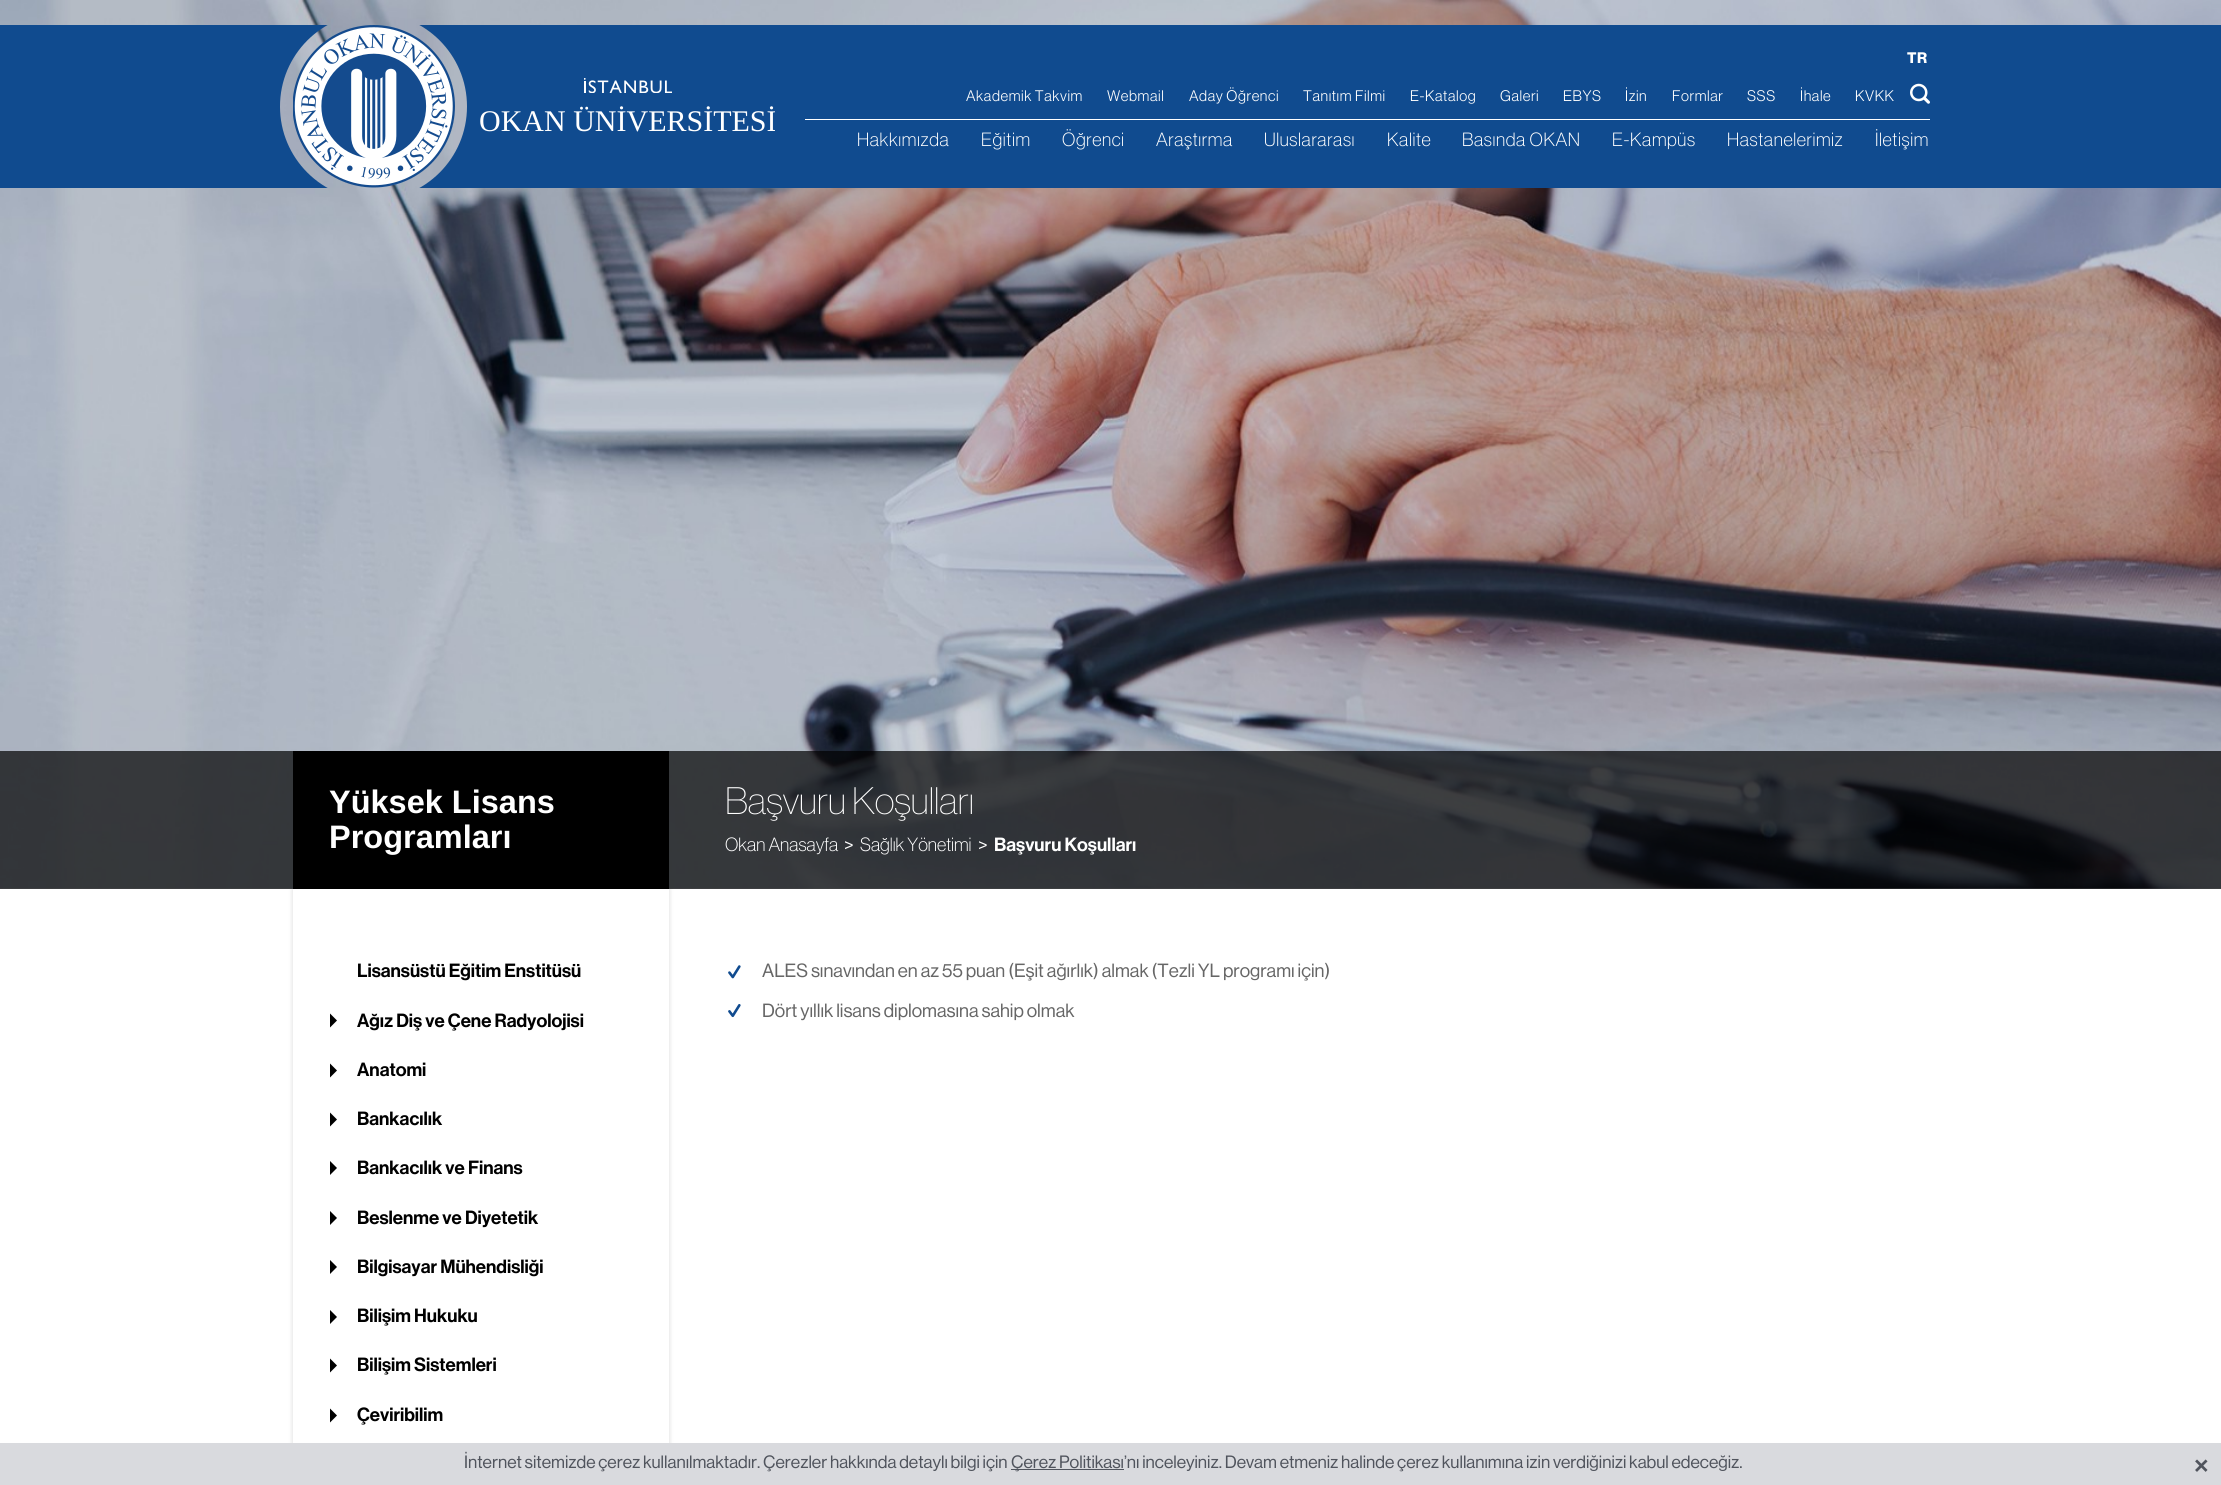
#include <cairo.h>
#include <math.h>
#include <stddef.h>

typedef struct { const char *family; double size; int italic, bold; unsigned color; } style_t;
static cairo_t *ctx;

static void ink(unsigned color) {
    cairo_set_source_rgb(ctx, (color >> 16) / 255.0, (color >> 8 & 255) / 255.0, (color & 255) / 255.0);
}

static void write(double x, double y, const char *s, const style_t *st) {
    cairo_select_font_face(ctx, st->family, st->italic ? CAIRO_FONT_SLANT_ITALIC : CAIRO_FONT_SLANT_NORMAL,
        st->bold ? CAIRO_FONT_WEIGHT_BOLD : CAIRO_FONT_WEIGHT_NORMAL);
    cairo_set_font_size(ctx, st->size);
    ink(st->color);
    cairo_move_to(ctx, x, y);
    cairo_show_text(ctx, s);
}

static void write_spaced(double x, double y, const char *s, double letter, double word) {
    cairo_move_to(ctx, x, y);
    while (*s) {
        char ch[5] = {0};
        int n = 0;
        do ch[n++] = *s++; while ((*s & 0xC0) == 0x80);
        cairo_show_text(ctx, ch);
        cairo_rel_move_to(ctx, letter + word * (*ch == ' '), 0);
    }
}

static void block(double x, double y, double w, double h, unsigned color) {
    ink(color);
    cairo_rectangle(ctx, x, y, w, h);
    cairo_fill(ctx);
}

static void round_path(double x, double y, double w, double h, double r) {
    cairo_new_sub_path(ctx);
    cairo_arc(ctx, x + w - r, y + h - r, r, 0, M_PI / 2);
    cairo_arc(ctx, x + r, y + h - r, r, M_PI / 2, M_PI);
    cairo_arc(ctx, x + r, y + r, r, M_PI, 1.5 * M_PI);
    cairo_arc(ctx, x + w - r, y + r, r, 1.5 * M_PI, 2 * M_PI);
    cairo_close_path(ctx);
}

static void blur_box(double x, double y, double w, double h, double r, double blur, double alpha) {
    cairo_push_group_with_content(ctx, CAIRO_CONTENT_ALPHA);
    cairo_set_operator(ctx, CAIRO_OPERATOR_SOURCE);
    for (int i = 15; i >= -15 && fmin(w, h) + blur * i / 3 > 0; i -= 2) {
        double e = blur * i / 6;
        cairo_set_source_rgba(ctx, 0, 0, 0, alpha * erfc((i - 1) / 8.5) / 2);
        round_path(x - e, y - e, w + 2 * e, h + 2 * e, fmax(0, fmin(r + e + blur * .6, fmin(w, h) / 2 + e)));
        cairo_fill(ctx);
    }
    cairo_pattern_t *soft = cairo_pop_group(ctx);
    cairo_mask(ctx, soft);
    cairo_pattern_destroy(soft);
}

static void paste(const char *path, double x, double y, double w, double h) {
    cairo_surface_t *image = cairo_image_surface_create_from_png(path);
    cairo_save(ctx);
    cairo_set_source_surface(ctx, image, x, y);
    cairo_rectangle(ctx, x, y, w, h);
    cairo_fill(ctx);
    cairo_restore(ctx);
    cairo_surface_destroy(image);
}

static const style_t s1 = {"Liberation Serif", 30, 0, 0, 0xffffff};
static const style_t s2 = {"Liberation Sans", 32.5, 0, 1, 0xffffff};
static const style_t s3 = {"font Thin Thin", 37.5, 0, 0, 0xffffff};
static const style_t s4 = {"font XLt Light", 18.75, 0, 0, 0xffffff};
static const style_t s5 = {"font", 18.75, 0, 0, 0xffffff};
static const style_t s6 = {"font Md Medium", 18.75, 0, 0, 0xffffff};
static const style_t s7 = {"font Md Medium", 18.75, 0, 0, 0x000000};
static const style_t s8 = {"font", 18.75, 0, 0, 0x666666};
static const style_t s9 = {"font", 17.5, 0, 0, 0x50545d};
static const style_t s10 = {"Liberation Sans", 25, 0, 1, 0x50545d};

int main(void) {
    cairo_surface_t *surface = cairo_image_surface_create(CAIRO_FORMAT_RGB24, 2221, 1485);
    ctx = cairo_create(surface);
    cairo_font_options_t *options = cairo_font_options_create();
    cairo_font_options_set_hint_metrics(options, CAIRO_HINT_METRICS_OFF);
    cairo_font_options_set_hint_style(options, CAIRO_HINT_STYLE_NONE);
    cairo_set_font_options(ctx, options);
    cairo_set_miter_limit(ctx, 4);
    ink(0xffffff);
    cairo_paint(ctx);
    ink(0x000000);
    blur_box(293, 889, 376, 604, 0, 2.5, 0.15);
    paste("pic1.png", 0, 0, 2221, 889);
    block(0, 25, 280, 163, 0x104b8f);
    block(798, 25, 1423, 163, 0x104b8f);
    cairo_save(ctx);
    cairo_rectangle(ctx, 280, 25, 505, 163);
    cairo_clip(ctx);
    cairo_arc(ctx, 373.5, 106.5, 110.5, 0, 2 * M_PI);
    cairo_set_line_width(ctx, 34);
    cairo_stroke(ctx);
    cairo_restore(ctx);
    block(471, 25, 327, 163, 0x104b8f);
    paste("pic2.png", 293, 25, 162, 163);
    paste("pic3.png", 584, 78, 88, 15);
    write(479, 131, "OKAN ÜNİVERSİTESİ", &s1);
    cairo_select_font_face(ctx, "font", CAIRO_FONT_SLANT_NORMAL, CAIRO_FONT_WEIGHT_BOLD);
    cairo_set_font_size(ctx, 15);
    write_spaced(1907, 63, "TR", 0.6, 0);
    cairo_select_font_face(ctx, "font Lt", CAIRO_FONT_SLANT_NORMAL, CAIRO_FONT_WEIGHT_NORMAL);
    write_spaced(966, 101, "Akademik Takvim", 0.6, 0);
    write_spaced(1107, 101, "Webmail", 0.6, 0);
    write_spaced(1189, 101, "Aday Öğrenci", 0.6, 0);
    write_spaced(1303, 101, "Tanıtım Filmi", 0.6, 0);
    write_spaced(1410, 101, "E-Katalog", 0.6, 0);
    write_spaced(1500, 101, "Galeri", 0.6, 0);
    write_spaced(1563, 101, "EBYS", 0.6, 0);
    write_spaced(1625, 101, "İzin", 0.6, 0);
    write_spaced(1672, 101, "Formlar", 0.6, 0);
    write_spaced(1747, 101, "SSS", 0.6, 0);
    write_spaced(1800, 101, "İhale", 0.6, 0);
    write_spaced(1855, 101, "KVKK", 0.6, 0);
    paste("pic4.png", 1910, 83, 20, 21);
    cairo_select_font_face(ctx, "font XLt Light", CAIRO_FONT_SLANT_NORMAL, CAIRO_FONT_WEIGHT_NORMAL);
    cairo_set_font_size(ctx, 18.75);
    write_spaced(857, 146, "Hakkımızda", 0.6, 0);
    write_spaced(981, 146, "Eğitim", 0.6, 0);
    write_spaced(1062, 146, "Öğrenci", 0.6, 0);
    write_spaced(1156, 146, "Araştırma", 0.6, 0);
    write_spaced(1264, 146, "Uluslararası", 0.6, 0);
    write_spaced(1387, 146, "Kalite", 0.6, 0);
    write_spaced(1462, 146, "Basında OKAN", 0.6, 0);
    write_spaced(1612, 146, "E-Kampüs", 0.6, 0);
    write_spaced(1727, 146, "Hastanelerimiz", 0.6, 0);
    write_spaced(1875, 146, "İletişim", 0.6, 0);
    block(805, 119, 1125, 1, 0xffffff);
    cairo_set_source_rgba(ctx, 0, 0, 0, 0.7);
    cairo_rectangle(ctx, 0, 751, 2221, 138);
    cairo_fill(ctx);
    block(293, 751, 376, 138, 0x000000);
    write(329, 813, "Yüksek Lisans", &s2);
    write(329, 848, "Programları", &s2);
    write(725, 814, "Başvuru Koşulları", &s3);
    write(725, 851, "Okan Anasayfa", &s4);
    write(844, 851, ">", &s5);
    write(860, 851, "Sağlık Yönetimi", &s4);
    write(978, 851, ">", &s5);
    write(994, 851, "Başvuru Koşulları", &s6);
    block(293, 889, 376, 554, 0xffffff);
    write(357, 977, "Lisansüstü Eğitim Enstitüsü", &s7);
    cairo_new_path(ctx);
    cairo_move_to(ctx, 330, 1013.5);
    cairo_line_to(ctx, 337, 1020.5);
    cairo_line_to(ctx, 330, 1027.5);
    cairo_close_path(ctx);
    cairo_fill(ctx);
    write(357, 1027, "Ağız Diş ve Çene Radyolojisi", &s7);
    cairo_new_path(ctx);
    cairo_move_to(ctx, 330, 1063.5);
    cairo_line_to(ctx, 337, 1070.5);
    cairo_line_to(ctx, 330, 1077.5);
    cairo_close_path(ctx);
    cairo_fill(ctx);
    write(357, 1076, "Anatomi", &s7);
    cairo_new_path(ctx);
    cairo_move_to(ctx, 330, 1112.5);
    cairo_line_to(ctx, 337, 1119.5);
    cairo_line_to(ctx, 330, 1126.5);
    cairo_close_path(ctx);
    cairo_fill(ctx);
    write(357, 1125, "Bankacılık", &s7);
    cairo_new_path(ctx);
    cairo_move_to(ctx, 330, 1161);
    cairo_line_to(ctx, 337, 1168);
    cairo_line_to(ctx, 330, 1175);
    cairo_close_path(ctx);
    cairo_fill(ctx);
    write(357, 1174, "Bankacılık ve Finans", &s7);
    cairo_new_path(ctx);
    cairo_move_to(ctx, 330, 1211);
    cairo_line_to(ctx, 337, 1218);
    cairo_line_to(ctx, 330, 1225);
    cairo_close_path(ctx);
    cairo_fill(ctx);
    write(357, 1224, "Beslenme ve Diyetetik", &s7);
    cairo_new_path(ctx);
    cairo_move_to(ctx, 330, 1260);
    cairo_line_to(ctx, 337, 1267);
    cairo_line_to(ctx, 330, 1274);
    cairo_close_path(ctx);
    cairo_fill(ctx);
    write(357, 1273, "Bilgisayar Mühendisliği", &s7);
    cairo_new_path(ctx);
    cairo_move_to(ctx, 330, 1310);
    cairo_line_to(ctx, 337, 1317);
    cairo_line_to(ctx, 330, 1324);
    cairo_close_path(ctx);
    cairo_fill(ctx);
    write(357, 1322, "Bilişim Hukuku", &s7);
    cairo_new_path(ctx);
    cairo_move_to(ctx, 330, 1358.5);
    cairo_line_to(ctx, 337, 1365.5);
    cairo_line_to(ctx, 330, 1372.5);
    cairo_close_path(ctx);
    cairo_fill(ctx);
    write(357, 1371, "Bilişim Sistemleri", &s7);
    cairo_new_path(ctx);
    cairo_move_to(ctx, 330, 1408.5);
    cairo_line_to(ctx, 337, 1415.5);
    cairo_line_to(ctx, 330, 1422.5);
    cairo_close_path(ctx);
    cairo_fill(ctx);
    write(357, 1421, "Çeviribilim", &s7);
    paste("pic5.png", 728, 965, 13, 14);
    write(762, 977, "ALES sınavından en az 55 puan (Eşit ağırlık) almak (Tezli YL programı için)", &s8);
    paste("pic6.png", 728, 1004, 13, 14);
    write(762, 1017, "Dört yıllık lisans diplomasına sahip olmak", &s8);
    block(0, 1443, 2221, 42, 0xd9dade);
    write(464, 1468, "İnternet sitemizde çerez kullanılmaktadır. Çerezler hakkında detaylı bilgi için", &s9);
    block(1011, 1469, 113, 1, 0x50545d);
    write(1011, 1468, "Çerez Politikası’nı inceleyiniz. Devam etmeniz halinde çerez kullanımına izin verdiğinizi kabul edeceğiz.", &s9);
    write(2194, 1474, "×", &s10);
    cairo_surface_write_to_png(surface, "screenshot.png");
    cairo_font_options_destroy(options);
    cairo_destroy(ctx);
    cairo_surface_destroy(surface);
    return 0;
}
